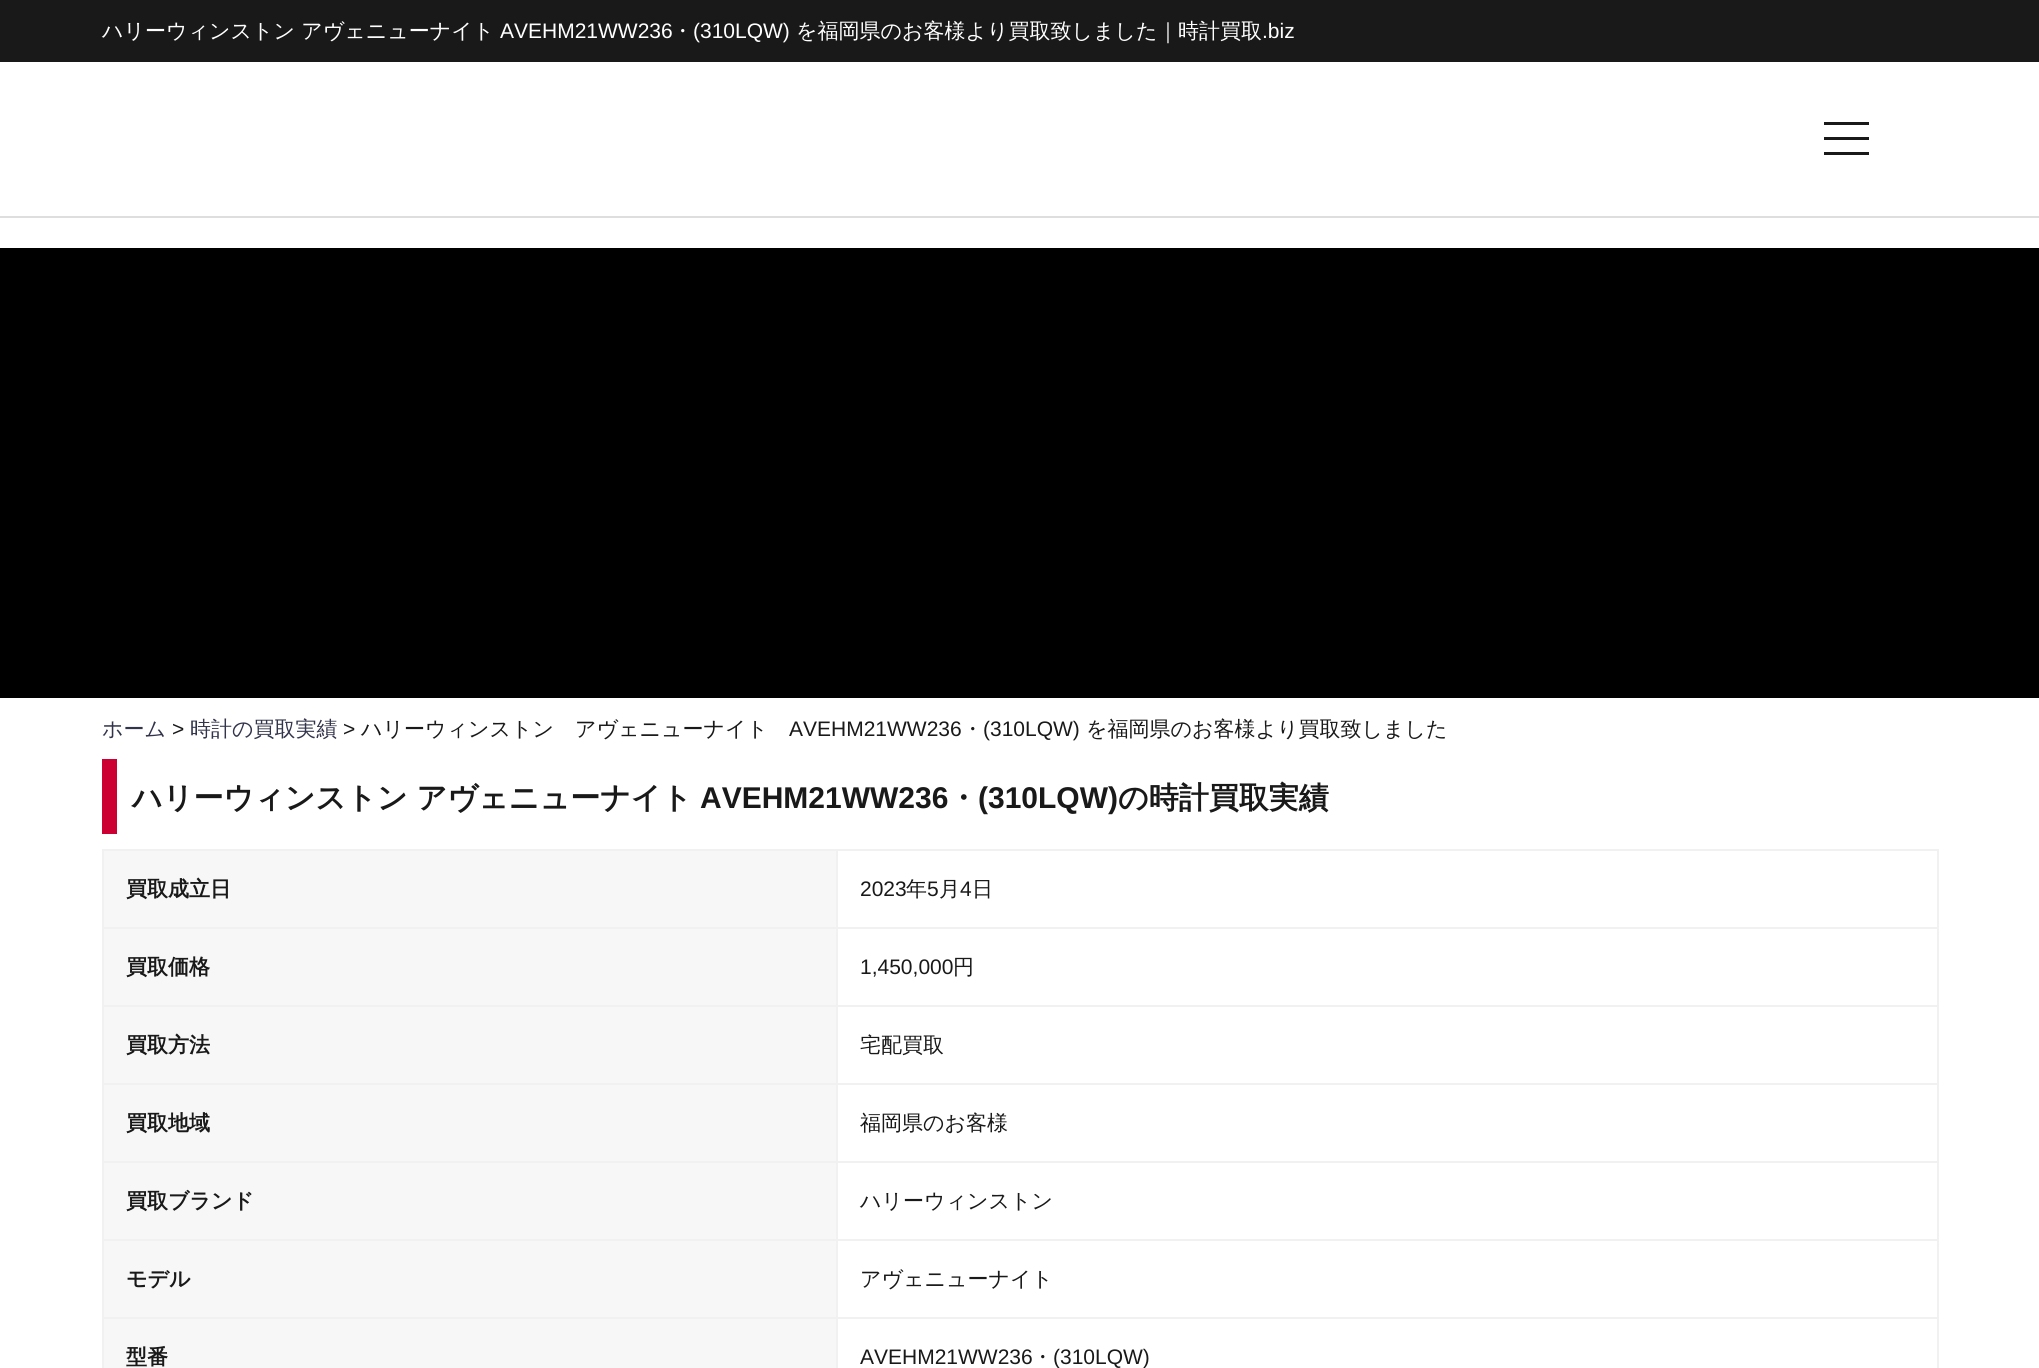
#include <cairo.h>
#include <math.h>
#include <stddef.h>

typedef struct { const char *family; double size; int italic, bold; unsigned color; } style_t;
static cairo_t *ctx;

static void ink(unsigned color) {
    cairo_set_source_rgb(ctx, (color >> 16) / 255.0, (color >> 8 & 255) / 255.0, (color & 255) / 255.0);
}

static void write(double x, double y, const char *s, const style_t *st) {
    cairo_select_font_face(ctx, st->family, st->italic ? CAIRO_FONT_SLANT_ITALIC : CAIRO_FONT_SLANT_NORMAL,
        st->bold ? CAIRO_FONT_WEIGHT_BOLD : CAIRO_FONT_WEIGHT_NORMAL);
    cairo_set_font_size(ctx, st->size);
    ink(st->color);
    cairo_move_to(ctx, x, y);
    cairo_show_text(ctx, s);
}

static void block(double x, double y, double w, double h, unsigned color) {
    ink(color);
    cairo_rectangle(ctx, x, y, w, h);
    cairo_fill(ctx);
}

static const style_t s1 = {"WenQuanYi Zen Hei Medium", 21, 0, 0, 0xffffff};
static const style_t s2 = {"Liberation Sans", 21, 0, 0, 0xffffff};
static const style_t s3 = {"WenQuanYi Zen Hei Medium", 21, 0, 0, 0x31344b};
static const style_t s4 = {"Liberation Sans", 21, 0, 0, 0x19191a};
static const style_t s5 = {"WenQuanYi Zen Hei Medium", 21, 0, 0, 0x19191a};
static const style_t s6 = {"WenQuanYi Zen Hei", 30, 0, 1, 0x19191a};
static const style_t s7 = {"Liberation Sans", 30, 0, 1, 0x19191a};
static const style_t s8 = {"WenQuanYi Zen Hei", 21, 0, 1, 0x19191a};

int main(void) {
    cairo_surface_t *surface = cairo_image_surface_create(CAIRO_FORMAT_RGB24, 2039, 1368);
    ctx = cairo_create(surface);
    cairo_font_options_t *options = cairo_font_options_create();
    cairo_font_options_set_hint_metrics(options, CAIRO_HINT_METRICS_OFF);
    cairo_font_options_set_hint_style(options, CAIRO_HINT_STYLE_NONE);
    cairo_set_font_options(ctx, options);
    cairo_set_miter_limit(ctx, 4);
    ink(0xffffff);
    cairo_paint(ctx);
    block(0, 216, 2039, 2, 0xdedede);
    block(0, 0, 2039, 62, 0x19191a);
    write(102, 38, "ハリーウィンストン アヴェニューナイト", &s1);
    write(500, 38, "AVEHM21WW236", &s2);
    write(672, 38, "・", &s1);
    write(693, 38, "(310LQW)", &s2);
    write(796, 38, "を福岡県のお客様より買取致しました｜時計買取", &s1);
    write(1262, 38, ".biz", &s2);
    block(1824, 122, 45, 3, 0x19191a);
    block(1824, 137, 45, 3, 0x19191a);
    block(1824, 152, 45, 3, 0x19191a);
    block(0, 248, 2039, 450, 0x000000);
    write(102, 736, "ホーム", &s3);
    write(172, 736, ">", &s4);
    write(190, 736, "時計の買取実績", &s3);
    write(343, 736, ">", &s4);
    write(361, 736, "ハリーウィンストン　アヴェニューナイト", &s5);
    write(789, 736, "AVEHM21WW236", &s4);
    write(962, 736, "・", &s5);
    write(983, 736, "(310LQW)", &s4);
    write(1086, 736, "を福岡県のお客様より買取致しました", &s5);
    block(102, 759, 15, 75, 0xcc0033);
    write(132, 808, "ハリーウィンストン アヴェニューナイト", &s6);
    write(700, 808, "AVEHM21WW236", &s7);
    write(948, 808, "・", &s6);
    write(978, 808, "(310LQW)", &s7);
    write(1118, 808, "の時計買取実績", &s6);
    block(104, 851, 732, 76, 0xf7f7f7);
    block(836, 849, 1102, 2, 0xf1f1f1);
    block(836, 927, 1102, 2, 0xf1f1f1);
    block(836, 1005, 1102, 2, 0xf1f1f1);
    block(836, 1083, 1102, 2, 0xf1f1f1);
    block(836, 1161, 1102, 2, 0xf1f1f1);
    block(836, 1239, 1102, 2, 0xf1f1f1);
    block(836, 1317, 1102, 2, 0xf1f1f1);
    block(836, 1317, 2, 51, 0xf1f1f1);
    block(102, 1317, 735, 2, 0xf1f1f1);
    block(836, 1239, 2, 80, 0xf1f1f1);
    block(102, 1239, 735, 2, 0xf1f1f1);
    block(836, 1161, 2, 80, 0xf1f1f1);
    block(102, 1161, 735, 2, 0xf1f1f1);
    block(836, 1083, 2, 80, 0xf1f1f1);
    block(102, 1083, 735, 2, 0xf1f1f1);
    block(836, 1005, 2, 80, 0xf1f1f1);
    block(102, 1005, 735, 2, 0xf1f1f1);
    block(836, 927, 2, 80, 0xf1f1f1);
    block(102, 927, 735, 2, 0xf1f1f1);
    block(836, 849, 2, 80, 0xf1f1f1);
    block(102, 849, 735, 2, 0xf1f1f1);
    block(102, 1317, 2, 51, 0xf1f1f1);
    block(102, 1239, 2, 80, 0xf1f1f1);
    block(102, 1161, 2, 80, 0xf1f1f1);
    block(102, 1083, 2, 80, 0xf1f1f1);
    block(102, 1005, 2, 80, 0xf1f1f1);
    block(102, 927, 2, 80, 0xf1f1f1);
    block(102, 849, 2, 80, 0xf1f1f1);
    write(126, 896, "買取成立日", &s8);
    block(1937, 1317, 2, 51, 0xf1f1f1);
    block(1937, 1239, 2, 80, 0xf1f1f1);
    block(1937, 1161, 2, 80, 0xf1f1f1);
    block(1937, 1083, 2, 80, 0xf1f1f1);
    block(1937, 1005, 2, 80, 0xf1f1f1);
    block(1937, 927, 2, 80, 0xf1f1f1);
    block(1937, 849, 2, 80, 0xf1f1f1);
    write(860, 896, "2023", &s4);
    write(906, 896, "年", &s5);
    write(927, 896, "5", &s4);
    write(939, 896, "月", &s5);
    write(960, 896, "4", &s4);
    write(972, 896, "日", &s5);
    block(104, 929, 732, 76, 0xf7f7f7);
    write(126, 974, "買取価格", &s8);
    write(860, 974, "1,450,000", &s4);
    write(953, 974, "円", &s5);
    block(104, 1007, 732, 76, 0xf7f7f7);
    write(126, 1052, "買取方法", &s8);
    write(860, 1052, "宅配買取", &s5);
    block(104, 1085, 732, 76, 0xf7f7f7);
    write(126, 1130, "買取地域", &s8);
    write(860, 1130, "福岡県のお客様", &s5);
    block(104, 1163, 732, 76, 0xf7f7f7);
    write(126, 1208, "買取ブランド", &s8);
    write(860, 1208, "ハリーウィンストン", &s5);
    block(104, 1241, 732, 76, 0xf7f7f7);
    write(126, 1286, "モデル", &s8);
    write(860, 1286, "アヴェニューナイト", &s5);
    block(104, 1319, 732, 49, 0xf7f7f7);
    write(126, 1364, "型番", &s8);
    write(860, 1364, "AVEHM21WW236", &s4);
    write(1032, 1364, "・", &s5);
    write(1053, 1364, "(310LQW)", &s4);
    cairo_surface_write_to_png(surface, "screenshot.png");
    cairo_font_options_destroy(options);
    cairo_destroy(ctx);
    cairo_surface_destroy(surface);
    return 0;
}
